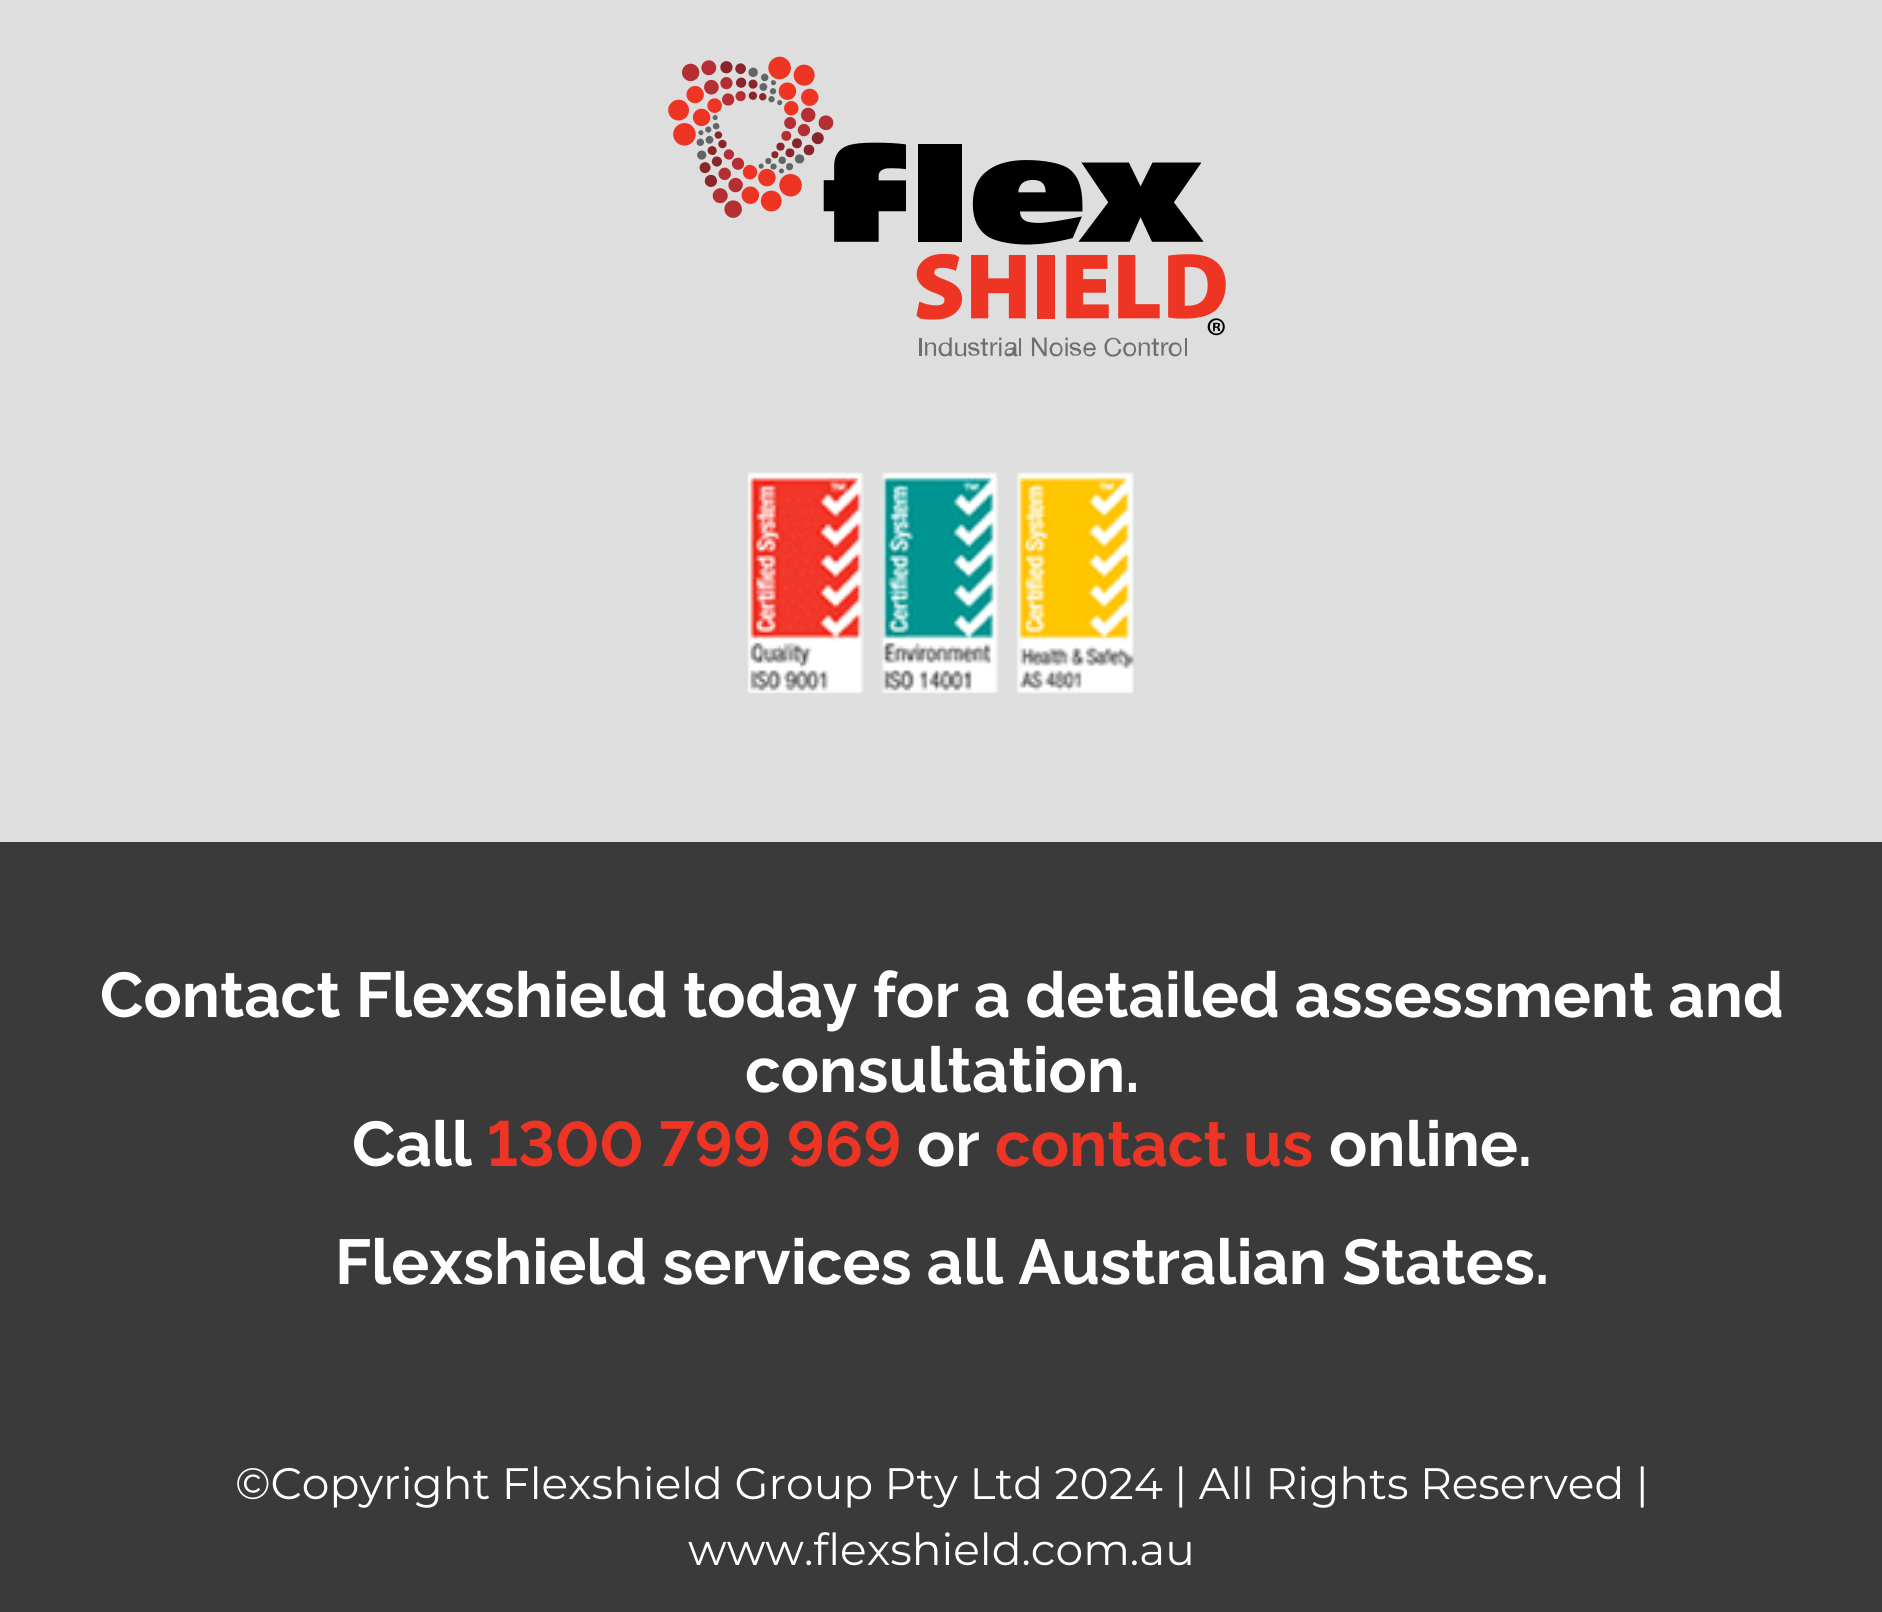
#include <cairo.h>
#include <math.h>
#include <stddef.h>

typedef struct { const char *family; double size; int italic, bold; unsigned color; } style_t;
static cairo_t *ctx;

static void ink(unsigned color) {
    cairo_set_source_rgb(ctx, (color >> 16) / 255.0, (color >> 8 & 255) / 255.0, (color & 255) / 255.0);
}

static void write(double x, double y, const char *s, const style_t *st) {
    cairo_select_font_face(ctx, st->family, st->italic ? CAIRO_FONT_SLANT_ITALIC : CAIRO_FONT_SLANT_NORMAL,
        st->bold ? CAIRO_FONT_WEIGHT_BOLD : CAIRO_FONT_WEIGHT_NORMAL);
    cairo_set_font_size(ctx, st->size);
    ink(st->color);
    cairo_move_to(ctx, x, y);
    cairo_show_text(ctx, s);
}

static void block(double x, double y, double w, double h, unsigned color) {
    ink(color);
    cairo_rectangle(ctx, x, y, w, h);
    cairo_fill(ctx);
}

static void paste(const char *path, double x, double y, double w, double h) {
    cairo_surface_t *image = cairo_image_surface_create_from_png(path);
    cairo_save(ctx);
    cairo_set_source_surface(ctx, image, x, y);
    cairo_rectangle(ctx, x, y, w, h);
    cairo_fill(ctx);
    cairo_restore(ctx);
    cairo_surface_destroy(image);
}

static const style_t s1 = {"Raleway", 63.25, 0, 1, 0xffffff};
static const style_t s2 = {"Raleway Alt", 63.25, 0, 1, 0xee3424};
static const style_t s3 = {"Raleway", 63.25, 0, 1, 0xee3424};
static const style_t s4 = {"Montserrat", 44, 0, 0, 0xffffff};

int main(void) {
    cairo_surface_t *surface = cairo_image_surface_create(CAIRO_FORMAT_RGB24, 1882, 1612);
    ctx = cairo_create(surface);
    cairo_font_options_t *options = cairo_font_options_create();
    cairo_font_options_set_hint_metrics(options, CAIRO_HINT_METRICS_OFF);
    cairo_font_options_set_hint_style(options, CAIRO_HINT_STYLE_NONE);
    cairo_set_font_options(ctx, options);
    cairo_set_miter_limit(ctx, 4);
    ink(0xdedede);
    cairo_paint(ctx);
    paste("pic1.png", 668, 56, 558, 301);
    paste("pic2.png", 747, 472, 387, 222);
    block(0, 842, 1882, 770, 0x3a3a3a);
    write(100, 1017, "Contact Flexshield today for a detailed assessment and", &s1);
    write(745, 1092, "consultation.", &s1);
    write(352, 1166, "Call", &s1);
    write(487, 1166, "1300 799 969", &s2);
    write(917, 1166, "or", &s1);
    write(995, 1166, "contact us", &s3);
    write(1329, 1166, "online.", &s1);
    write(335, 1284, "Flexshield services all Australian States.", &s1);
    write(235, 1499, "©Copyright Flexshield Group Pty Ltd 2024 | All Rights Reserved |", &s4);
    write(688, 1565, "www.flexshield.com.au", &s4);
    cairo_surface_write_to_png(surface, "screenshot.png");
    cairo_font_options_destroy(options);
    cairo_destroy(ctx);
    cairo_surface_destroy(surface);
    return 0;
}
